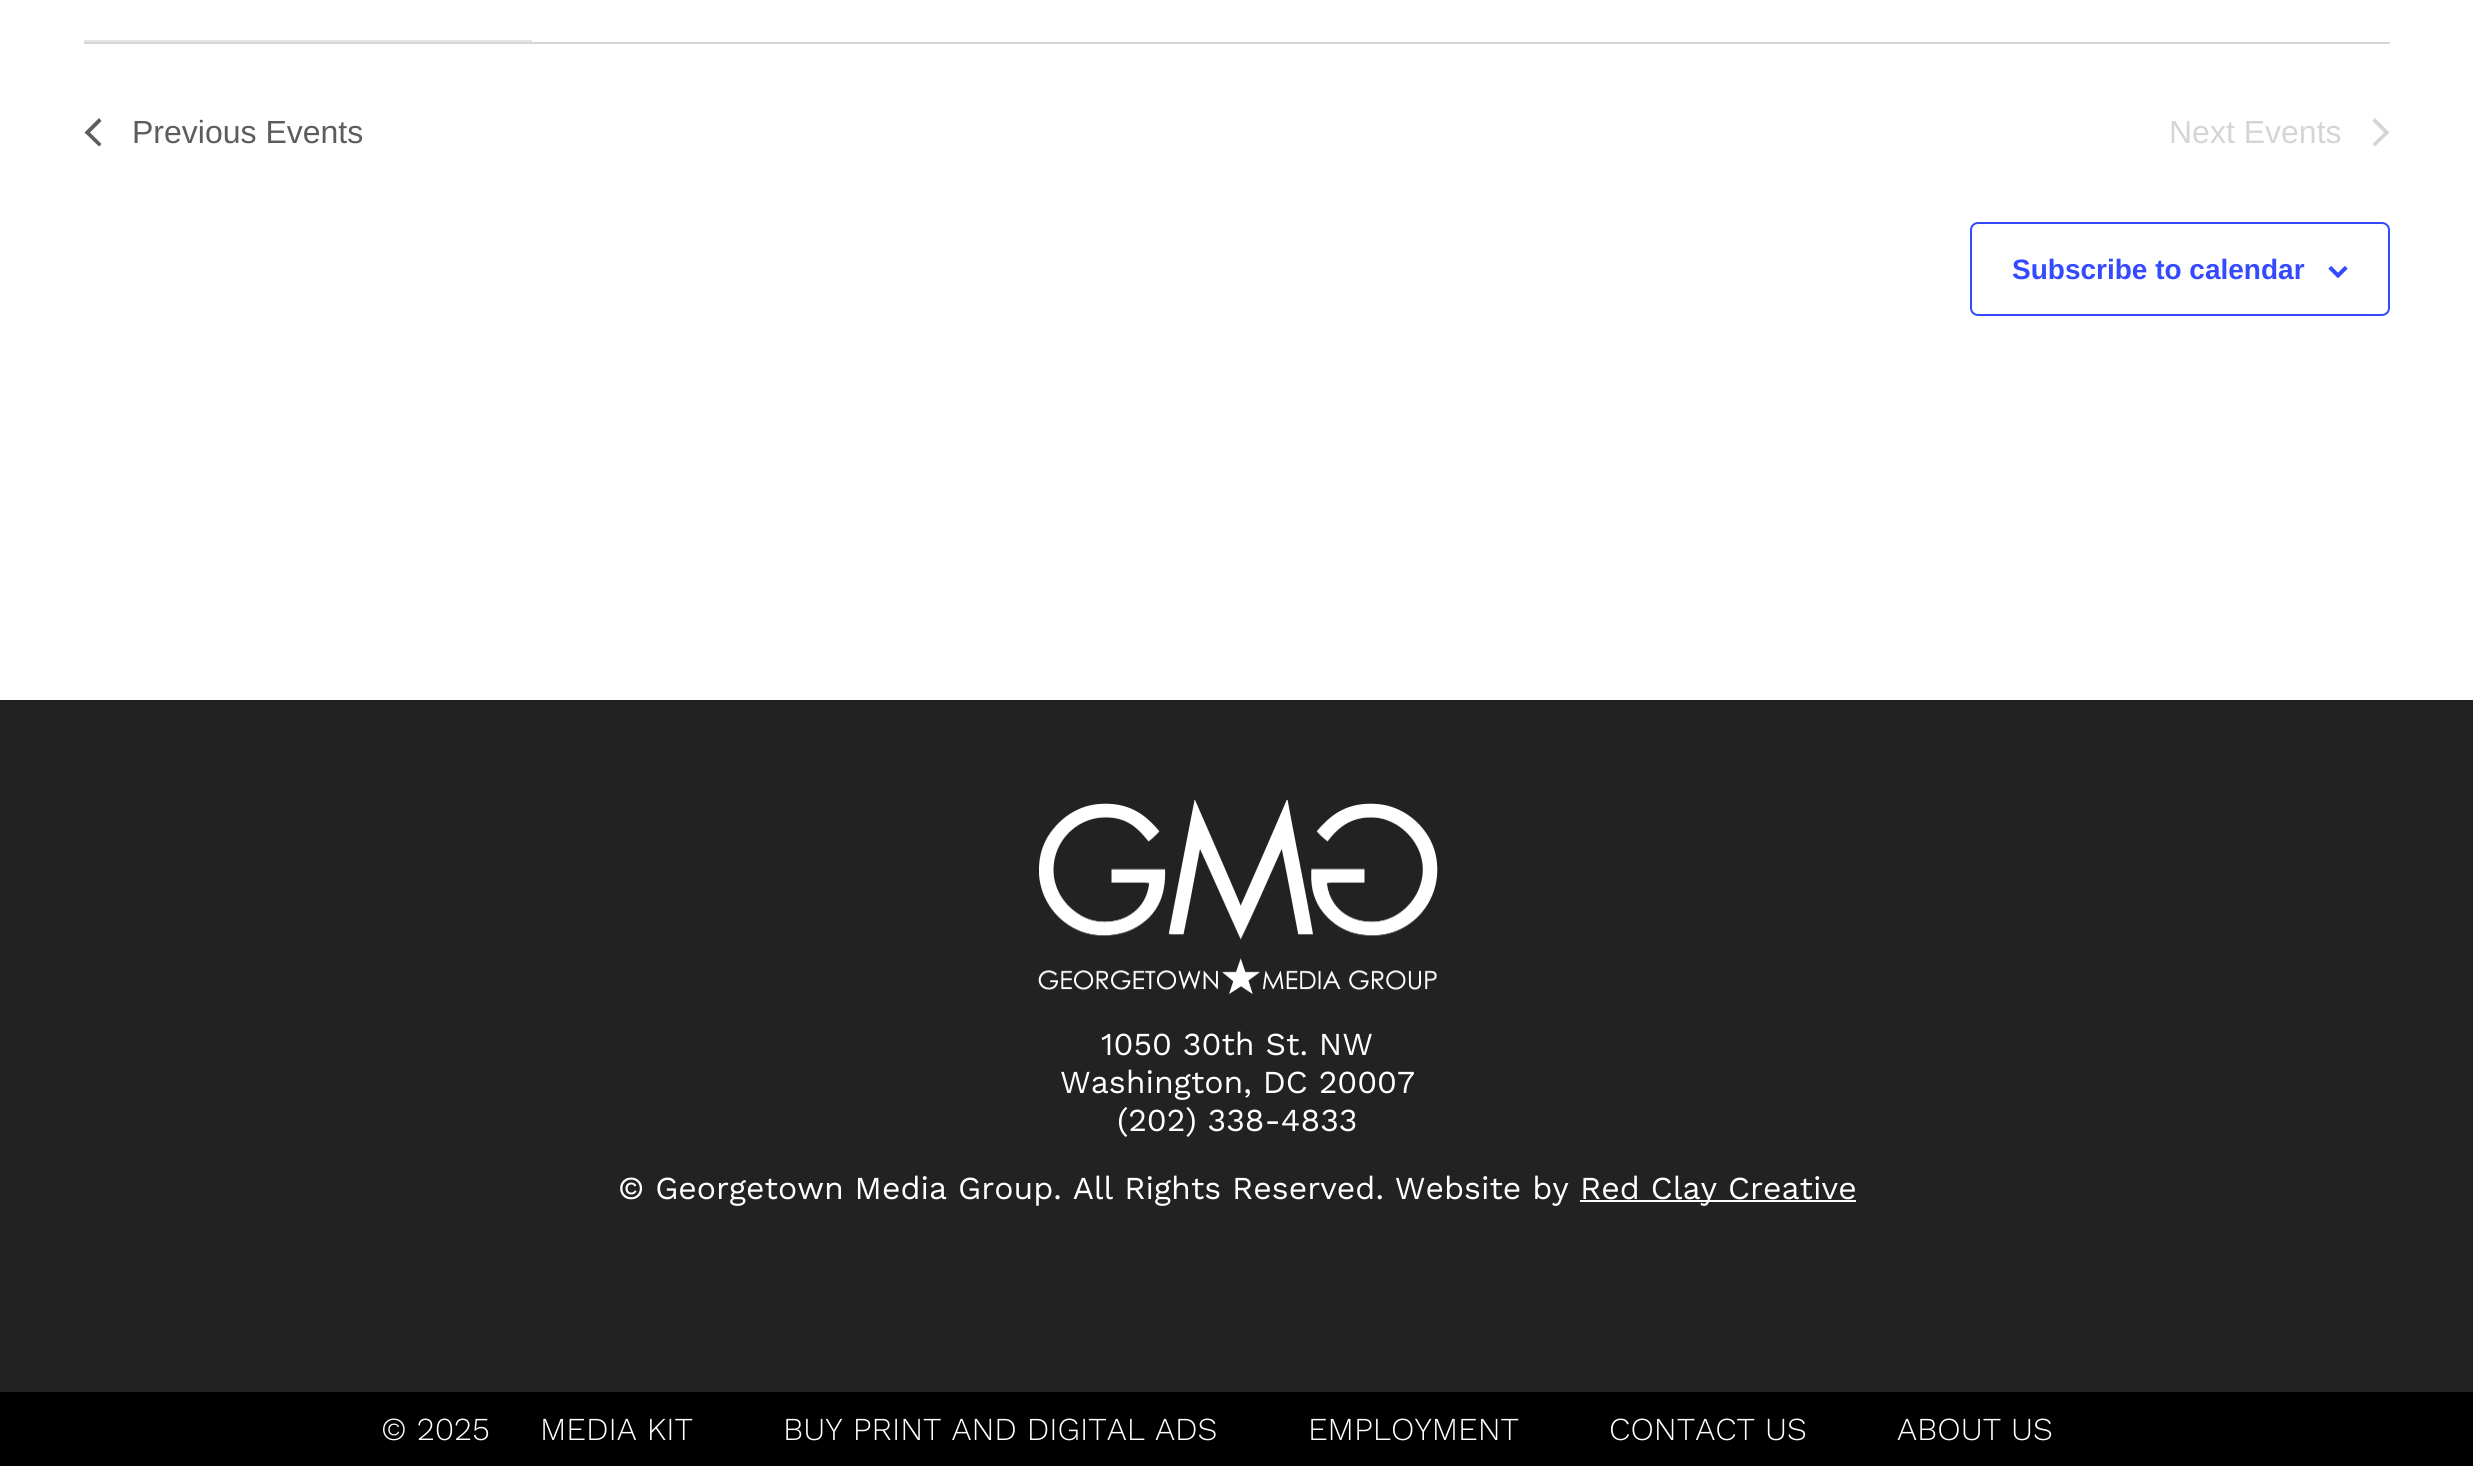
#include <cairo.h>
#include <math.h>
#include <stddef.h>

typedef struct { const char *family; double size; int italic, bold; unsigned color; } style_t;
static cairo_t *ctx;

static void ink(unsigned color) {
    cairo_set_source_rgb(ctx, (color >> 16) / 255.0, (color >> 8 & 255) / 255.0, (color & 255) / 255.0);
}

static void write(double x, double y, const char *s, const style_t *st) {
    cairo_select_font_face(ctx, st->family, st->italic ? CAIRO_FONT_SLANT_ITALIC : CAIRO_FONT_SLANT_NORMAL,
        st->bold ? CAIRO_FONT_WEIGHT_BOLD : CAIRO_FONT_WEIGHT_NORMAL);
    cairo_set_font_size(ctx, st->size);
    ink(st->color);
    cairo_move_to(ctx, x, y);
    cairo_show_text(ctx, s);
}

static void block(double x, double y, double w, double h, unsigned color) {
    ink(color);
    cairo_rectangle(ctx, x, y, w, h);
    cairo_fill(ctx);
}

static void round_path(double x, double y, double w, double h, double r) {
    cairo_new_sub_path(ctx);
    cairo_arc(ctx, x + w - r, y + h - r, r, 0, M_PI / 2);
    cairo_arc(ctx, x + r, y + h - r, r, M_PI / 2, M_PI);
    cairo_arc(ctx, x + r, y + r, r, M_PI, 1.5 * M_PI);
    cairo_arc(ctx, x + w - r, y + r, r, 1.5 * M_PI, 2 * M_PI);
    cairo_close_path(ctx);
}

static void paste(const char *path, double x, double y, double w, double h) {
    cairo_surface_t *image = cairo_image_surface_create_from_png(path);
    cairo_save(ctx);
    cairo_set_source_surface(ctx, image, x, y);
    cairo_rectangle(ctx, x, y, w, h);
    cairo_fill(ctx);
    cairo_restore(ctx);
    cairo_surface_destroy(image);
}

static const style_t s1 = {"Liberation Sans", 32, 0, 0, 0x5d5d5d};
static const style_t s2 = {"Liberation Sans", 32, 0, 0, 0xd5d5d5};
static const style_t s3 = {"Liberation Sans", 28, 0, 1, 0x334aff};
static const style_t s4 = {"Work Sans", 32, 0, 0, 0xffffff};
static const style_t s5 = {"Work Sans Light", 32, 0, 0, 0xffffff};

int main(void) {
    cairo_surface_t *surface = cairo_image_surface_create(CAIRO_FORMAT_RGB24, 2473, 1466);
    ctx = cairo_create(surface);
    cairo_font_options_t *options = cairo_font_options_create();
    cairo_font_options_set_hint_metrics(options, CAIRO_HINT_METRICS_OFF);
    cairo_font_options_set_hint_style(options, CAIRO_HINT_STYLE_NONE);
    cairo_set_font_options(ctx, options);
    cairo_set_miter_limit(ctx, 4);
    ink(0xffffff);
    cairo_paint(ctx);
    block(84, 40, 448, 2, 0xe4e4e4);
    block(84, 42, 2306, 2, 0xd5d5d5);
    ink(0x5d5d5d);
    cairo_new_path(ctx);
    cairo_move_to(ctx, 101.5, 144);
    cairo_line_to(ctx, 99, 146.5);
    cairo_line_to(ctx, 84.5, 132.5);
    cairo_line_to(ctx, 99, 118);
    cairo_line_to(ctx, 101.5, 121);
    cairo_line_to(ctx, 90, 132.5);
    cairo_close_path(ctx);
    cairo_fill(ctx);
    write(132, 143, "Previous Events", &s1);
    write(2169, 143, "Next Events", &s2);
    cairo_new_path(ctx);
    cairo_move_to(ctx, 2372.5, 121);
    cairo_line_to(ctx, 2375, 118);
    cairo_line_to(ctx, 2389.5, 132.5);
    cairo_line_to(ctx, 2375, 146.5);
    cairo_line_to(ctx, 2372.5, 144);
    cairo_line_to(ctx, 2384, 132.5);
    cairo_close_path(ctx);
    cairo_fill(ctx);
    round_path(1971, 223, 418, 92, 7);
    ink(0x334aff);
    cairo_stroke(ctx);
    write(2012, 279, "Subscribe to calendar", &s3);
    paste("pic1.png", 2328, 266, 20, 12);
    block(0, 700, 2473, 692, 0x222222);
    paste("pic2.png", 1038, 800, 400, 194);
    write(1101, 1055, "1050 30th St. NW", &s4);
    write(1060, 1093, "Washington, DC 20007", &s4);
    write(1117, 1131, "(202) 338-4833", &s4);
    write(618, 1199, "© Georgetown Media Group. All Rights Reserved. Website by", &s4);
    block(1580, 1200, 276, 2, 0xffffff);
    write(1580, 1199, "Red Clay Creative", &s4);
    block(0, 1392, 2473, 74, 0x000000);
    write(381, 1440, "© 2025", &s5);
    write(540, 1440, "MEDIA KIT", &s5);
    write(783, 1440, "BUY PRINT AND DIGITAL ADS", &s5);
    write(1308, 1440, "EMPLOYMENT", &s5);
    write(1609, 1440, "CONTACT US", &s5);
    write(1897, 1440, "ABOUT US", &s5);
    cairo_surface_write_to_png(surface, "screenshot.png");
    cairo_font_options_destroy(options);
    cairo_destroy(ctx);
    cairo_surface_destroy(surface);
    return 0;
}
